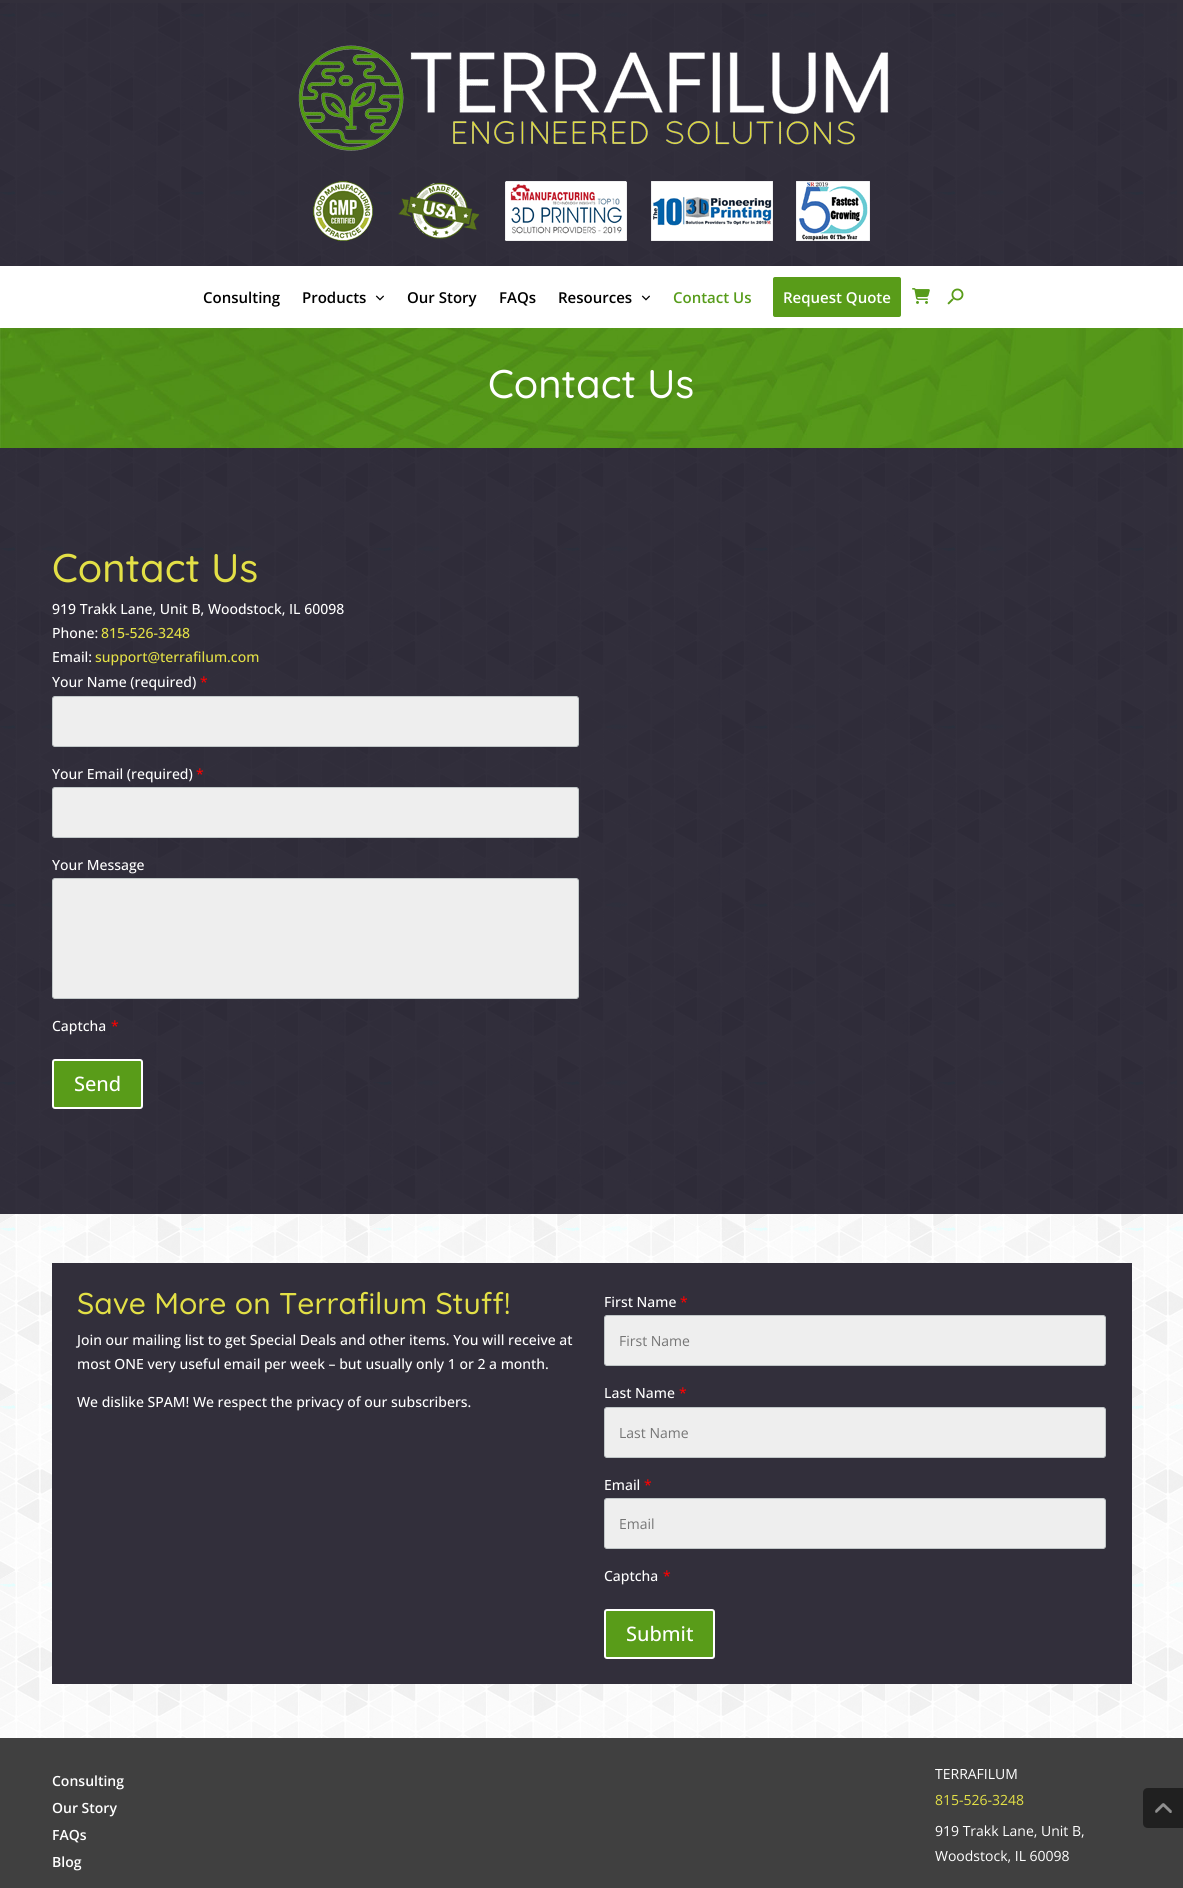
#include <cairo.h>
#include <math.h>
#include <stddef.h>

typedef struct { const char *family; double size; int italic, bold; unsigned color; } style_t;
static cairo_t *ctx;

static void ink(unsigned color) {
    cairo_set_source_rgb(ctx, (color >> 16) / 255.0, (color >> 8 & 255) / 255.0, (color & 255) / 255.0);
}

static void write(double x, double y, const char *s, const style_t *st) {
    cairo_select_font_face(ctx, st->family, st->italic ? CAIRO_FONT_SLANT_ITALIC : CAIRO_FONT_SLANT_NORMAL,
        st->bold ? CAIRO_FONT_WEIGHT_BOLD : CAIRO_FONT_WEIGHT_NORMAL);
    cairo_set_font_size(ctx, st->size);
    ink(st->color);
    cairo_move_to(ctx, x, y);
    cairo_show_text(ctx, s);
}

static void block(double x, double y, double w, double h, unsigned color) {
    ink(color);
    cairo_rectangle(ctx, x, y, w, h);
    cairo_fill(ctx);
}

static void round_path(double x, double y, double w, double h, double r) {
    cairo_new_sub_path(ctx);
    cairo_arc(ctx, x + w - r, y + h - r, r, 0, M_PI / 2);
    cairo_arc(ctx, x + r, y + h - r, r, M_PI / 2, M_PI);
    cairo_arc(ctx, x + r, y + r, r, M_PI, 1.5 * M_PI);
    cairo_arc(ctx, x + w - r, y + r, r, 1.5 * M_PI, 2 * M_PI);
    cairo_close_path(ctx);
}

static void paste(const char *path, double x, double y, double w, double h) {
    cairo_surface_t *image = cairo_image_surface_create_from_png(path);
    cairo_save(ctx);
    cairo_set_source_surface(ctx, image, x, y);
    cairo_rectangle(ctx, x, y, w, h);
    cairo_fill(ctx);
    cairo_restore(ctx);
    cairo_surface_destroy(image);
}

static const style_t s1 = {"Open Sans SemiBold", 15, 0, 0, 0x000000};
static const style_t s2 = {"Open Sans SemiBold", 15, 0, 0, 0x579c1a};
static const style_t s3 = {"Open Sans SemiBold", 15, 0, 0, 0xffffff};
static const style_t s4 = {"Quicksand Medium", 40, 0, 0, 0xffffff};
static const style_t s5 = {"Quicksand Medium", 40, 0, 0, 0xe3e046};
static const style_t s6 = {"Open Sans Medium", 14, 0, 0, 0xffffff};
static const style_t s7 = {"Open Sans Medium", 14, 0, 0, 0xe3e046};
static const style_t s8 = {"Open Sans Medium", 14, 0, 0, 0xff0000};
static const style_t s9 = {"Open Sans Medium", 20, 0, 0, 0xffffff};
static const style_t s10 = {"Quicksand Medium", 30, 0, 0, 0xe3e046};
static const style_t s11 = {"Open Sans", 14, 0, 0, 0x757575};
static const style_t s12 = {"Open Sans SemiBold", 14, 0, 0, 0xffffff};
static const style_t s13 = {"Open Sans", 14, 0, 0, 0xffffff};
static const style_t s14 = {"Open Sans", 14, 0, 0, 0xe3e046};

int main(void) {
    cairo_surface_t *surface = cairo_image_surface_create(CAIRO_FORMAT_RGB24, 1183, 1888);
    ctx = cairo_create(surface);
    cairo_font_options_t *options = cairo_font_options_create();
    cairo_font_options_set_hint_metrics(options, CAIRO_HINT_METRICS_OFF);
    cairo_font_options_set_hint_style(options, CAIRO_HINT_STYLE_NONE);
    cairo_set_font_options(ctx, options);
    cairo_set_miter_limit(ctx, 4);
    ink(0x322f3b);
    cairo_paint(ctx);
    paste("pic1.png", 0, 3, 1177, 1211);
    paste("pic2.png", 298, 45, 591, 106);
    paste("pic3.png", 313, 181, 60, 60);
    paste("pic4.png", 398, 183, 81, 56);
    paste("pic5.png", 505, 181, 122, 60);
    paste("pic6.png", 651, 181, 122, 60);
    paste("pic7.png", 796, 181, 74, 60);
    block(0, 266, 1183, 62, 0xffffff);
    write(203, 303, "Consulting", &s1);
    write(302, 303, "Products", &s1);
    paste("pic8.png", 375, 295, 9, 6);
    write(407, 303, "Our Story", &s1);
    write(499, 303, "FAQs", &s1);
    write(558, 303, "Resources", &s1);
    paste("pic8.png", 641, 295, 9, 6);
    write(673, 303, "Contact Us", &s2);
    ink(0x599c19);
    round_path(773, 277, 128, 40, 2);
    cairo_fill(ctx);
    write(783, 303, "Request Quote", &s3);
    paste("pic9.png", 912, 288, 18, 16);
    paste("pic10.png", 947, 288, 17, 17);
    paste("pic11.png", 0, 328, 1183, 120);
    write(488, 398, "Contact Us", &s4);
    write(52, 582, "Contact Us", &s5);
    write(52, 614, "919 Trakk Lane, Unit B, Woodstock, IL 60098", &s6);
    write(52, 638, "Phone:", &s6);
    write(101, 638, "815-526-3248", &s7);
    write(52, 662, "Email:", &s6);
    write(95, 662, "support@terrafilum.com", &s7);
    write(52, 687, "Your Name (required)", &s6);
    write(200, 687, "*", &s8);
    ink(0xeeeeee);
    round_path(52.5, 696.5, 526, 50, 2.5);
    cairo_fill_preserve(ctx);
    ink(0xc1c7c8);
    cairo_set_line_width(ctx, 1);
    cairo_stroke(ctx);
    write(52, 779, "Your Email (required)", &s6);
    write(196, 779, "*", &s8);
    ink(0xeeeeee);
    round_path(52.5, 787.5, 526, 50, 2.5);
    cairo_fill_preserve(ctx);
    ink(0xc1c7c8);
    cairo_stroke(ctx);
    write(52, 870, "Your Message", &s6);
    ink(0xeeeeee);
    round_path(52.5, 878.5, 526, 120, 2.5);
    cairo_fill_preserve(ctx);
    ink(0xc1c7c8);
    cairo_stroke(ctx);
    write(52, 1031, "Captcha", &s6);
    write(111, 1031, "*", &s8);
    ink(0x599c19);
    round_path(53, 1060, 89, 48, 2);
    cairo_fill_preserve(ctx);
    ink(0xffffff);
    cairo_set_line_width(ctx, 2);
    cairo_stroke(ctx);
    write(74, 1091, "Send", &s9);
    block(0, 1738, 1183, 150, 0x404040);
    paste("pic12.png", 0, 1214, 1183, 524);
    block(52, 1263, 1080, 421, 0x322f3b);
    write(77, 1314, "Save More on Terrafilum Stuff!", &s10);
    write(77, 1345, "Join our mailing list to get Special Deals and other items. You will receive at", &s6);
    write(77, 1369, "most ONE very useful email per week – but usually only 1 or 2 a month.", &s6);
    write(77, 1407, "We dislike SPAM! We respect the privacy of our subscribers.", &s6);
    write(604, 1307, "First Name", &s6);
    write(680, 1307, "*", &s8);
    ink(0xeeeeee);
    round_path(604.5, 1315.5, 501, 50, 2.5);
    cairo_fill_preserve(ctx);
    ink(0xc1c7c8);
    cairo_set_line_width(ctx, 1);
    cairo_stroke(ctx);
    write(619, 1346, "First Name", &s11);
    write(604, 1398, "Last Name", &s6);
    write(679, 1398, "*", &s8);
    ink(0xeeeeee);
    round_path(604.5, 1407.5, 501, 50, 2.5);
    cairo_fill_preserve(ctx);
    ink(0xc1c7c8);
    cairo_stroke(ctx);
    write(619, 1438, "Last Name", &s11);
    write(604, 1490, "Email", &s6);
    write(644, 1490, "*", &s8);
    ink(0xeeeeee);
    round_path(604.5, 1498.5, 501, 50, 2.5);
    cairo_fill_preserve(ctx);
    ink(0xc1c7c8);
    cairo_stroke(ctx);
    write(619, 1529, "Email", &s11);
    write(604, 1581, "Captcha", &s6);
    write(663, 1581, "*", &s8);
    ink(0x599c19);
    round_path(605, 1610, 109, 48, 2);
    cairo_fill_preserve(ctx);
    ink(0xffffff);
    cairo_set_line_width(ctx, 2);
    cairo_stroke(ctx);
    write(626, 1641, "Submit", &s9);
    write(52, 1786, "Consulting", &s12);
    write(52, 1813, "Our Story", &s12);
    write(52, 1840, "FAQs", &s12);
    write(52, 1867, "Blog", &s12);
    write(935, 1779, "TERRAFILUM", &s13);
    write(935, 1805, "815-526-3248", &s14);
    write(935, 1836, "919 Trakk Lane, Unit B,", &s13);
    write(935, 1861, "Woodstock, IL 60098", &s13);
    ink(0x202020);
    cairo_new_path(ctx);
    cairo_move_to(ctx, 1148, 1788);
    cairo_line_to(ctx, 1183, 1788);
    cairo_line_to(ctx, 1183, 1828);
    cairo_line_to(ctx, 1148, 1828);
    cairo_curve_to(ctx, 1145, 1828, 1143, 1826, 1143, 1823);
    cairo_line_to(ctx, 1143, 1793);
    cairo_curve_to(ctx, 1143, 1790, 1145, 1788, 1148, 1788);
    cairo_close_path(ctx);
    cairo_fill(ctx);
    paste("pic13.png", 1155, 1803, 17, 10);
    cairo_surface_write_to_png(surface, "screenshot.png");
    cairo_font_options_destroy(options);
    cairo_destroy(ctx);
    cairo_surface_destroy(surface);
    return 0;
}
